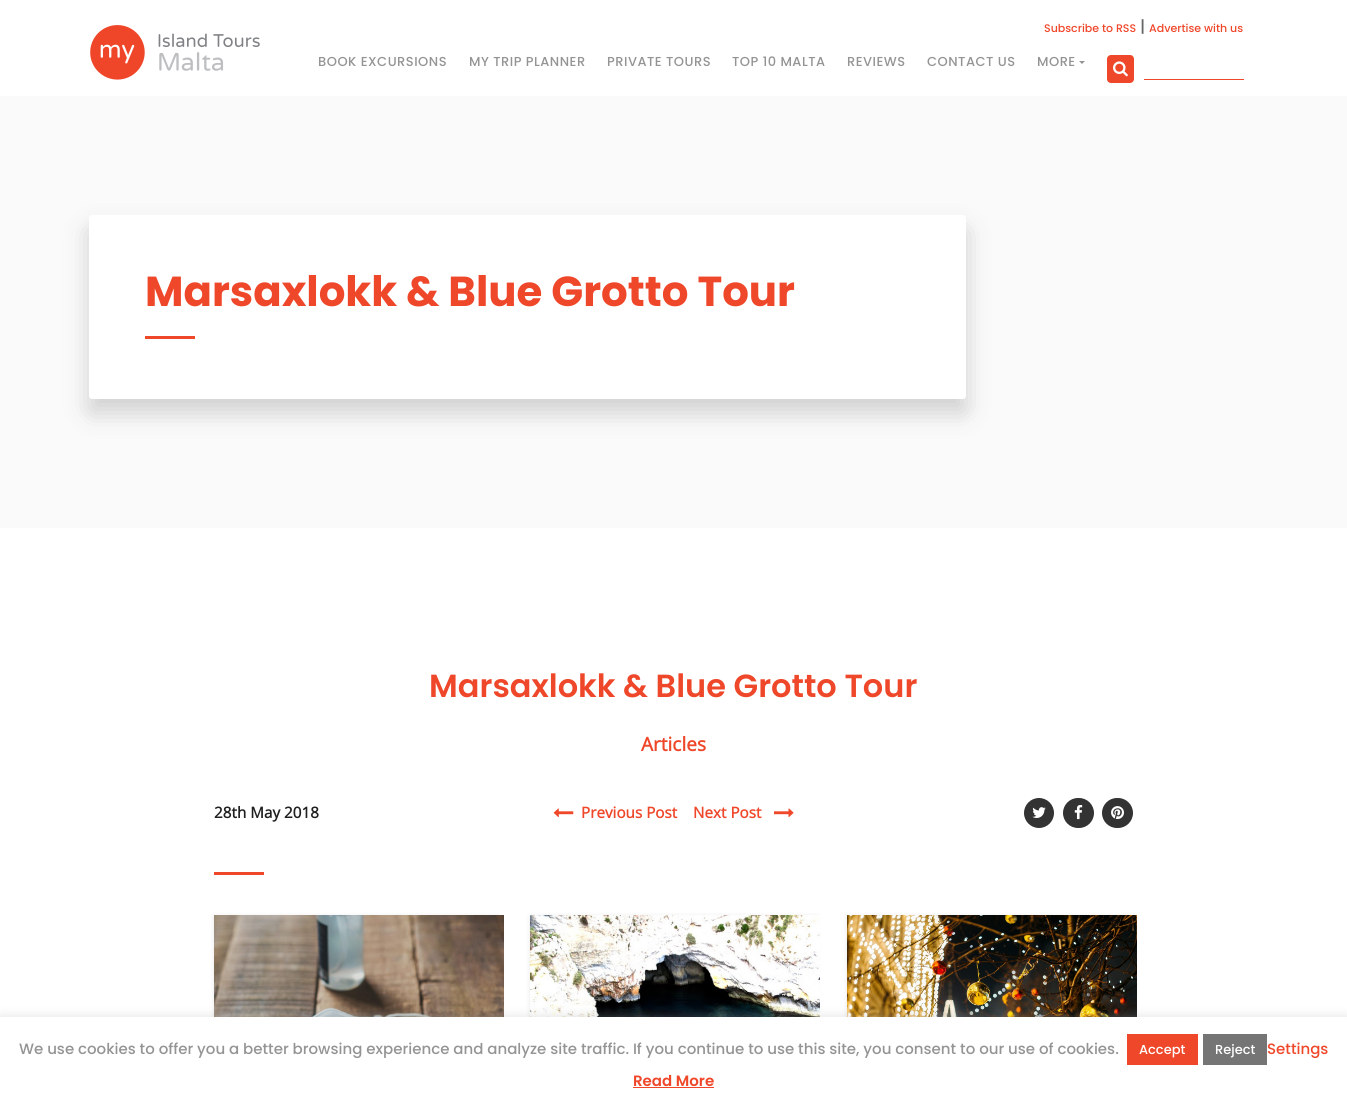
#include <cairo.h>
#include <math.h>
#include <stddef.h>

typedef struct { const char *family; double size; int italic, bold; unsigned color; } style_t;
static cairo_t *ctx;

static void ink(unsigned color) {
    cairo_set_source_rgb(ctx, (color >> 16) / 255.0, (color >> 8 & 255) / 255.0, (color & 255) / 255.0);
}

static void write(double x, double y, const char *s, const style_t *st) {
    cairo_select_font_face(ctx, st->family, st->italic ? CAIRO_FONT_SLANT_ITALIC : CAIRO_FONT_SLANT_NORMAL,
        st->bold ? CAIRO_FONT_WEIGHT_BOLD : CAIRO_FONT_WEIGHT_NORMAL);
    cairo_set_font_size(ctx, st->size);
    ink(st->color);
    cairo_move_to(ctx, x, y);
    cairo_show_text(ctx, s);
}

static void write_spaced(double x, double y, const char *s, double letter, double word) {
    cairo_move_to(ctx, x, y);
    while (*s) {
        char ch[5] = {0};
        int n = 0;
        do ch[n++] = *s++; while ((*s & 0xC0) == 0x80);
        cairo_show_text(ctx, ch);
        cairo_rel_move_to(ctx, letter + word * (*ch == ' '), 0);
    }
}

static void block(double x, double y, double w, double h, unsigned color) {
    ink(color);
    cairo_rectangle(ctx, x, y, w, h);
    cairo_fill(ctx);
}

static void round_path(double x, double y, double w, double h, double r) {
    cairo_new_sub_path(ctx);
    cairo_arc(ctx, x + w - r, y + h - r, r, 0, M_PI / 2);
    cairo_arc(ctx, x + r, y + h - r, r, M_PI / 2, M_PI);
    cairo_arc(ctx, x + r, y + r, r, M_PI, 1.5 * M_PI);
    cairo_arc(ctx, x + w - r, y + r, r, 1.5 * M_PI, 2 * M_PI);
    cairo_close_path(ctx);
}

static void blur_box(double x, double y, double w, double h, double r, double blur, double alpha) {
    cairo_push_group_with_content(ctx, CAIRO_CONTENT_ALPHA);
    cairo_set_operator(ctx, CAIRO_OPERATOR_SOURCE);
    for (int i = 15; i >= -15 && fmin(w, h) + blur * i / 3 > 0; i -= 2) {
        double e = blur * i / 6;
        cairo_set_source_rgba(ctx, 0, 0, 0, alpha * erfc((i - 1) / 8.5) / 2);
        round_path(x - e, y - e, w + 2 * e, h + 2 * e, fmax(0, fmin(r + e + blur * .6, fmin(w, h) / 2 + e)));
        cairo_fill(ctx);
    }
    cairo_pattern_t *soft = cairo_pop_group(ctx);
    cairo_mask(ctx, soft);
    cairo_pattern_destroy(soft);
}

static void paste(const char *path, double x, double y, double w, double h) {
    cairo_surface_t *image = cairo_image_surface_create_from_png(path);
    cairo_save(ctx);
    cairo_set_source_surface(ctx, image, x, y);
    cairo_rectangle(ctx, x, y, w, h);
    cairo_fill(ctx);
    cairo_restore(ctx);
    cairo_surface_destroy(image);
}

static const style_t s1 = {"Poppins Medium", 11, 0, 0, 0xef472a};
static const style_t s2 = {"Poppins Medium", 16, 0, 0, 0x666666};
static const style_t s3 = {"Poppins", 41.9, 0, 1, 0xef472a};
static const style_t s4 = {"Poppins SemiBold", 32, 0, 0, 0xef472a};
static const style_t s5 = {"Open Sans", 19, 0, 1, 0xef472a};
static const style_t s6 = {"Open Sans", 15.25, 0, 1, 0x202020};
static const style_t s7 = {"Open Sans", 15.25, 0, 1, 0xef472a};
static const style_t s8 = {"Poppins Medium", 15, 0, 0, 0x949494};
static const style_t s9 = {"Poppins Medium", 13, 0, 0, 0xffffff};
static const style_t s10 = {"Poppins Medium", 15, 0, 0, 0xef472a};
static const style_t s11 = {"Poppins SemiBold", 15, 0, 0, 0xef472a};

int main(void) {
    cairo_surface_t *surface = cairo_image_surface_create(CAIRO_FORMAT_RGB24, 1347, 1108);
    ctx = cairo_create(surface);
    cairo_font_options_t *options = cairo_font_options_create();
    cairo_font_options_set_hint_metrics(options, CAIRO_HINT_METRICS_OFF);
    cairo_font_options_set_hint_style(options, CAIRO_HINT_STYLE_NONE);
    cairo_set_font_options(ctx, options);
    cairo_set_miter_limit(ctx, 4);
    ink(0xffffff);
    cairo_paint(ctx);
    paste("pic1.png", 90, 25, 170, 55);
    write(1044, 32, "Subscribe to RSS", &s1);
    write(1140, 32, "|", &s2);
    write(1149, 32, "Advertise with us", &s1);
    cairo_set_font_size(ctx, 13);
    ink(0x949494);
    write_spaced(318, 66, "BOOK EXCURSIONS", 0.5, 0);
    write_spaced(469, 66, "MY TRIP PLANNER", 0.5, 0);
    write_spaced(607, 66, "PRIVATE TOURS", 0.5, 0);
    write_spaced(732, 66, "TOP 10 MALTA", 0.5, 0);
    write_spaced(847, 66, "REVIEWS", 0.5, 0);
    write_spaced(927, 66, "CONTACT US", 0.5, 0);
    write_spaced(1037, 66, "MORE", 0.5, 0);
    cairo_new_path(ctx);
    cairo_move_to(ctx, 1079, 61);
    cairo_line_to(ctx, 1085, 61);
    cairo_line_to(ctx, 1082, 64);
    cairo_close_path(ctx);
    cairo_fill(ctx);
    ink(0xef472a);
    round_path(1107, 55, 27, 28, 4);
    cairo_fill(ctx);
    paste("pic2.png", 1113, 61, 15, 16);
    block(1144, 79, 100, 1, 0xef472a);
    block(0, 96, 1347, 432, 0xfafafa);
    ink(0x000000);
    blur_box(89, 229, 877, 184, 3, 12, 0.17);
    ink(0xffffff);
    round_path(89, 215, 877, 184, 3);
    cairo_fill(ctx);
    write(145, 306, "Marsaxlokk & Blue Grotto Tour", &s3);
    block(145, 336, 50, 3, 0xef472a);
    write(429, 697, "Marsaxlokk & Blue Grotto Tour", &s4);
    write(641, 751, "Articles", &s5);
    write(214, 818, "28th May 2018", &s6);
    paste("pic3.png", 553, 808, 21, 9);
    write(581, 818, "Previous Post", &s7);
    write(693, 818, "Next Post", &s7);
    paste("pic4.png", 774, 808, 20, 9);
    ink(0x333333);
    cairo_arc(ctx, 1039, 813, 15, 0, 2 * M_PI);
    cairo_fill(ctx);
    paste("pic5.png", 1032, 807, 14, 11);
    round_path(1063, 798, 31, 30, 15);
    cairo_fill(ctx);
    paste("pic6.png", 1074, 805, 9, 15);
    round_path(1102, 798, 31, 30, 15);
    cairo_fill(ctx);
    paste("pic7.png", 1111, 806, 13, 14);
    block(214, 872, 50, 3, 0xef472a);
    ink(0x000000);
    blur_box(214, 916, 286, 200, 0, 2.5, 0.1);
    paste("pic8.png", 214, 915, 290, 102);
    blur_box(530, 916, 287, 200, 0, 2.5, 0.1);
    paste("pic9.png", 530, 915, 290, 102);
    blur_box(847, 916, 286, 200, 0, 2.5, 0.1);
    paste("pic10.png", 847, 915, 290, 102);
    ink(0xacabab);
    blur_box(0, 1016, 1347, 91, 0, 5, 0.3);
    block(0, 1017, 1347, 91, 0xffffff);
    write(19, 1054, "We use cookies to offer you a better browsing experience and analyze site traffic. If you continue to use this site, you consent to our use of cookies.", &s8);
    block(1127, 1034, 71, 31, 0xef472a);
    write(1139, 1054, "Accept", &s9);
    block(1203, 1034, 64, 31, 0x757575);
    write(1215, 1054, "Reject", &s9);
    write(1267, 1054, "Settings", &s10);
    write(633, 1086, "Read More", &s11);
    block(633, 1087, 81, 1, 0xef472a);
    cairo_surface_write_to_png(surface, "screenshot.png");
    cairo_font_options_destroy(options);
    cairo_destroy(ctx);
    cairo_surface_destroy(surface);
    return 0;
}
